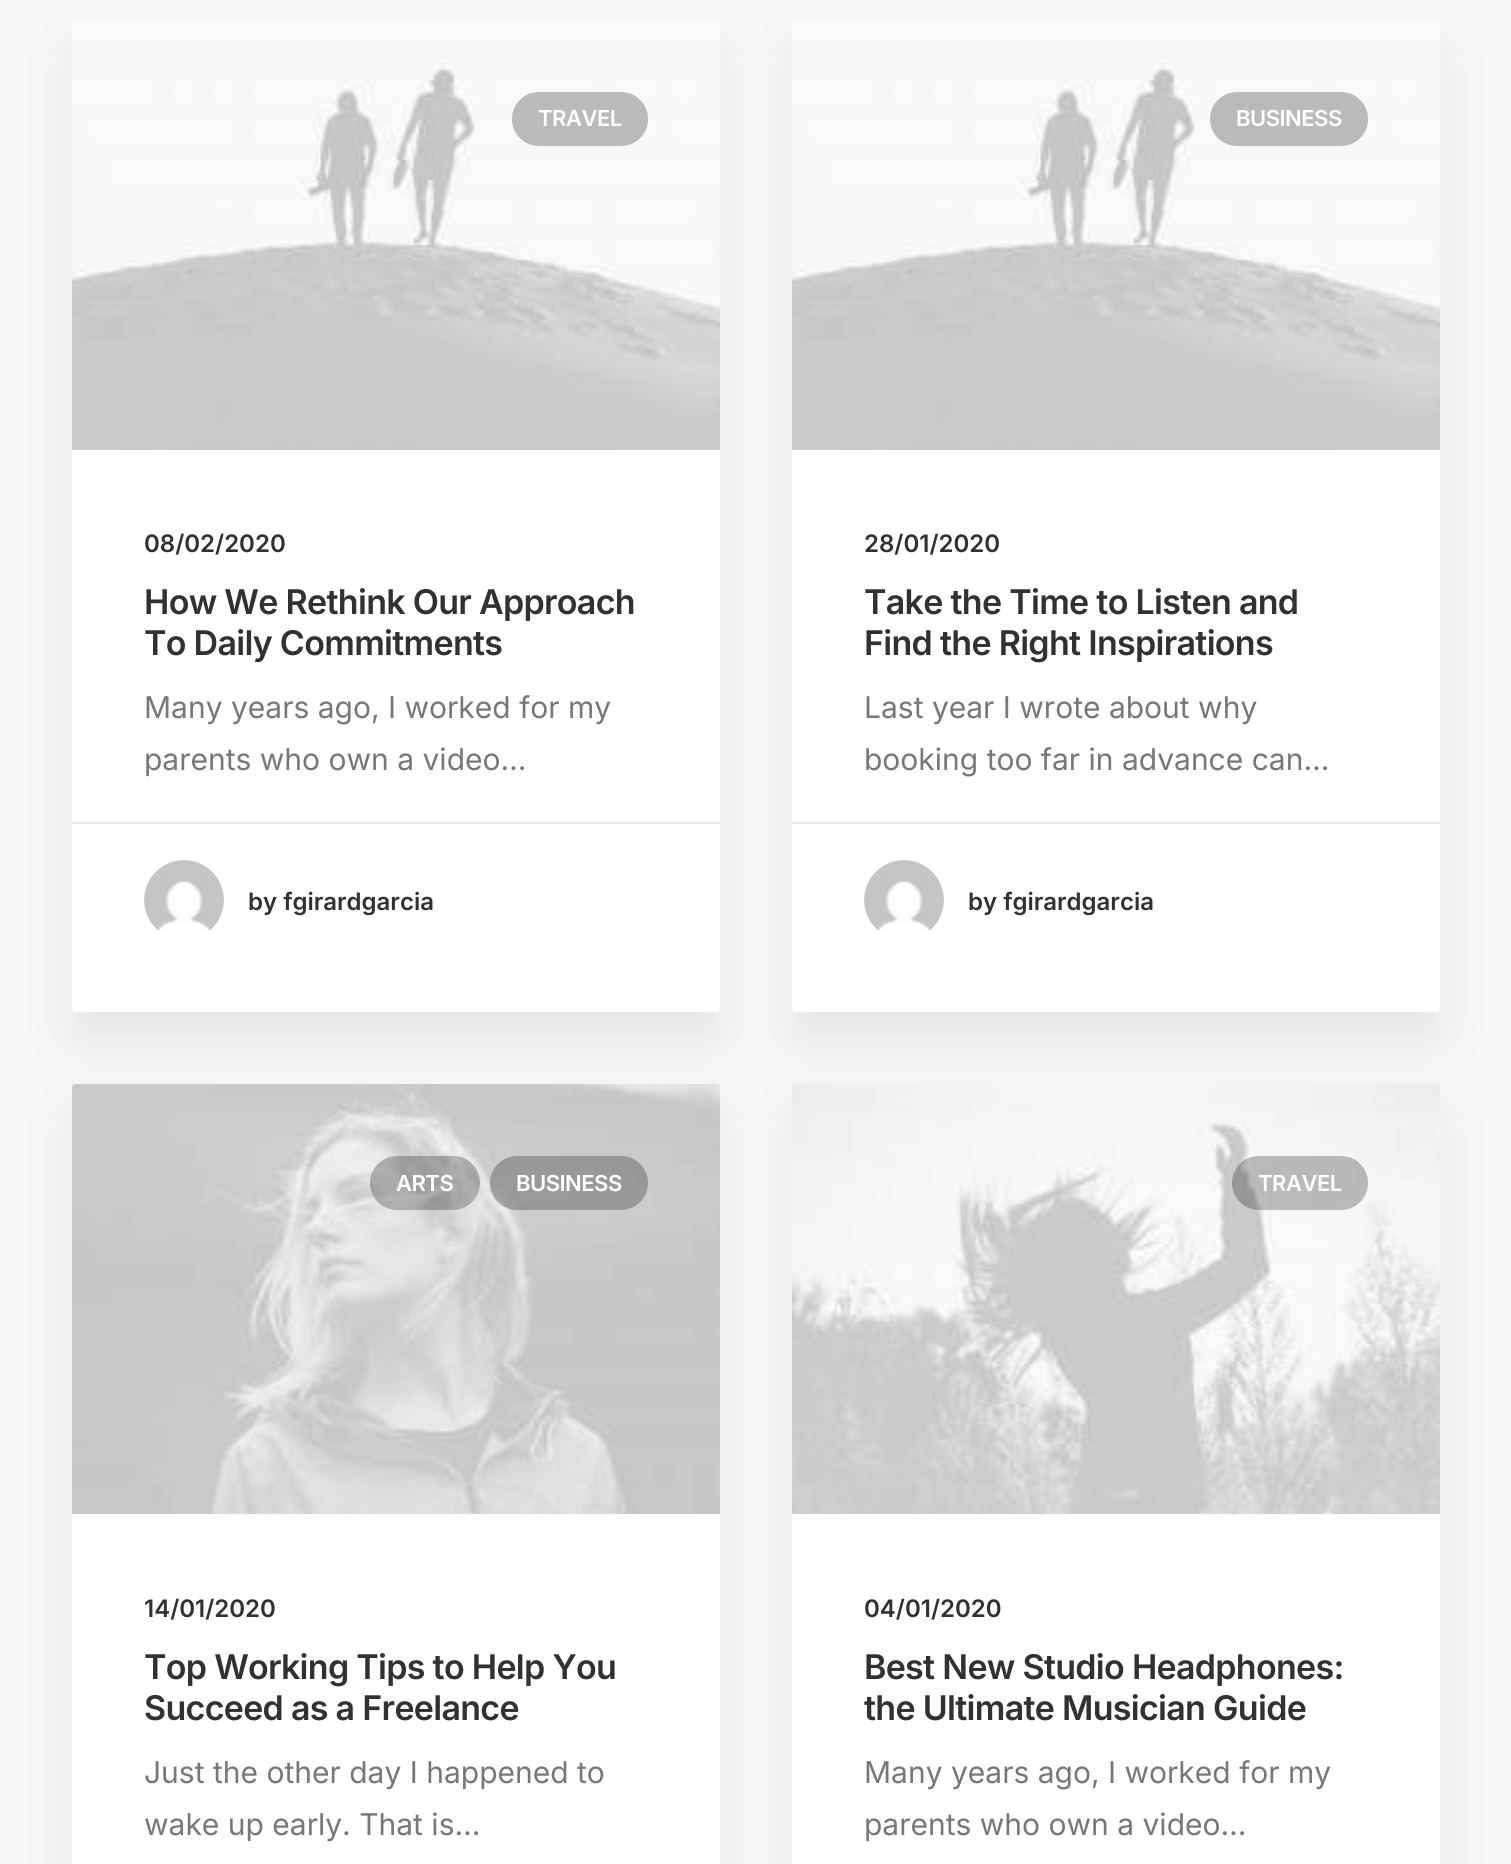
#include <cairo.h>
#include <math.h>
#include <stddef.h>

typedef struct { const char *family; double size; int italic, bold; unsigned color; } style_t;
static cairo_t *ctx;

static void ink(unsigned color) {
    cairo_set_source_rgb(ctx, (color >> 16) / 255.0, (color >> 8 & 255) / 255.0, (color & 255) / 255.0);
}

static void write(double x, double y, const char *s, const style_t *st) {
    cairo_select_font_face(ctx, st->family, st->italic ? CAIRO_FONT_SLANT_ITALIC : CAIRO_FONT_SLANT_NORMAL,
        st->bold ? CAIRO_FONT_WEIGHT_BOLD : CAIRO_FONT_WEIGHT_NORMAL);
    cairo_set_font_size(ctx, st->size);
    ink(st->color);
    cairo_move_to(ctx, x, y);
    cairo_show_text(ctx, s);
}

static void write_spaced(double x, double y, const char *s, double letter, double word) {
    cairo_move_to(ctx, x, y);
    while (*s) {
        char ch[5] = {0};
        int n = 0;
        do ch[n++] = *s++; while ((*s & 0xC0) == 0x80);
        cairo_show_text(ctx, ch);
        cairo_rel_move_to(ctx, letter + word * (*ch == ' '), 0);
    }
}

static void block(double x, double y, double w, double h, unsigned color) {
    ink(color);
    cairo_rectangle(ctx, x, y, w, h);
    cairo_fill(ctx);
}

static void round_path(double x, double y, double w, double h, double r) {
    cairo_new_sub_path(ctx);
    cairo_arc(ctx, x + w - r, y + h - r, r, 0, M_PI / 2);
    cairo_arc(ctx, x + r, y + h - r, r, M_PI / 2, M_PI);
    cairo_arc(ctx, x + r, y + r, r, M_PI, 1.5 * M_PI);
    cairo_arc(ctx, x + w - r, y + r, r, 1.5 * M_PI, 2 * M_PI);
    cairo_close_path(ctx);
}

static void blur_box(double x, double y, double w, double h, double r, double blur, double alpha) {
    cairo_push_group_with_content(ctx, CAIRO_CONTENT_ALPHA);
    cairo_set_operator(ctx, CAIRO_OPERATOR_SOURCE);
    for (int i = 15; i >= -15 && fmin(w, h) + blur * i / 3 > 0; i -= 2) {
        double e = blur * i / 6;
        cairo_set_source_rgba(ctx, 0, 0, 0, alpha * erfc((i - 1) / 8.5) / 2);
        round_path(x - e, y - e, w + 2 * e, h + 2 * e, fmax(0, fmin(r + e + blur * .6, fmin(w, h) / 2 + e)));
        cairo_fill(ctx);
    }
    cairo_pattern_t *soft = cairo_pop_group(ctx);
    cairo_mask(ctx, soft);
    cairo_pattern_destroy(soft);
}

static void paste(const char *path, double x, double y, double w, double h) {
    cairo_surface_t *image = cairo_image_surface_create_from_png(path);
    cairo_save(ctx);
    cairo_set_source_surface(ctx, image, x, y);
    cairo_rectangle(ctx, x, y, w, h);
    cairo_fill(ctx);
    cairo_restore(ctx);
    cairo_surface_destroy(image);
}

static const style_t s1 = {"Inter SemiBold", 24, 0, 0, 0x303133};
static const style_t s2 = {"Inter", 30, 0, 0, 0x777777};

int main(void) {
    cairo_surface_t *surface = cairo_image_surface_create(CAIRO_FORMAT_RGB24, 1511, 1864);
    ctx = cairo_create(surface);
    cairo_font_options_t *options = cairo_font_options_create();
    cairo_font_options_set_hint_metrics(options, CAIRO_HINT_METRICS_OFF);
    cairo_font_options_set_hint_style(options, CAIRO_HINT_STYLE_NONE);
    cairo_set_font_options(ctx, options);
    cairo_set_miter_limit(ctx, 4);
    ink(0xf7f7f7);
    cairo_paint(ctx);
    ink(0x000000);
    blur_box(72, 50, 648, 992, 4, 30, 0.07);
    ink(0xffffff);
    round_path(72, 20, 648, 992, 4);
    cairo_fill(ctx);
    paste("pic1.png", 72, 20, 648, 430);
    ink(0xbababa);
    round_path(512, 92, 136, 54, 27);
    cairo_fill(ctx);
    cairo_select_font_face(ctx, "Inter SemiBold", CAIRO_FONT_SLANT_NORMAL, CAIRO_FONT_WEIGHT_NORMAL);
    cairo_set_font_size(ctx, 22);
    ink(0xffffff);
    write_spaced(538, 126, "TRAVEL", -0.5, 0);
    write(144, 552, "08/02/2020", &s1);
    cairo_set_font_size(ctx, 34);
    write_spaced(144, 614, "How We Rethink Our Approach", -0.7, 0);
    write_spaced(144, 655, "To Daily Commitments", -0.7, 0);
    write(144, 718, "Many years ago, I worked for my", &s2);
    write(144, 770, "parents who own a video…", &s2);
    block(72, 822, 648, 2, 0xeaeaea);
    paste("pic2.png", 144, 860, 80, 71);
    write(248, 910, "by fgirardgarcia", &s1);
    ink(0x000000);
    blur_box(792, 50, 648, 992, 4, 30, 0.07);
    ink(0xffffff);
    round_path(792, 20, 648, 992, 4);
    cairo_fill(ctx);
    paste("pic3.png", 792, 20, 648, 430);
    ink(0xbababa);
    round_path(1210, 92, 158, 54, 27);
    cairo_fill(ctx);
    cairo_set_font_size(ctx, 22);
    ink(0xffffff);
    write_spaced(1236, 126, "BUSINESS", -0.5, 0);
    write(864, 552, "28/01/2020", &s1);
    cairo_set_font_size(ctx, 34);
    write_spaced(864, 614, "Take the Time to Listen and", -0.7, 0);
    write_spaced(864, 655, "Find the Right Inspirations", -0.7, 0);
    write(864, 718, "Last year I wrote about why", &s2);
    write(864, 770, "booking too far in advance can…", &s2);
    block(792, 822, 648, 2, 0xeaeaea);
    paste("pic2.png", 864, 860, 80, 71);
    write(968, 910, "by fgirardgarcia", &s1);
    ink(0x000000);
    blur_box(72, 1114, 648, 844, 4, 30, 0.07);
    ink(0xffffff);
    round_path(72, 1084, 648, 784, 4);
    cairo_fill(ctx);
    paste("pic4.png", 72, 1084, 648, 430);
    cairo_set_source_rgba(ctx, 0, 0, 0, 0.25);
    round_path(370, 1156, 110, 54, 27);
    cairo_fill(ctx);
    cairo_set_font_size(ctx, 22);
    ink(0xffffff);
    write_spaced(396, 1191, "ARTS", -0.5, 0);
    cairo_set_source_rgba(ctx, 0, 0, 0, 0.25);
    round_path(490, 1156, 158, 54, 27);
    cairo_fill(ctx);
    ink(0xffffff);
    write_spaced(516, 1191, "BUSINESS", -0.5, 0);
    write(144, 1617, "14/01/2020", &s1);
    cairo_set_font_size(ctx, 34);
    write_spaced(144, 1679, "Top Working Tips to Help You", -0.7, 0);
    write_spaced(144, 1720, "Succeed as a Freelance", -0.7, 0);
    write(144, 1783, "Just the other day I happened to", &s2);
    write(144, 1835, "wake up early. That is…", &s2);
    ink(0x000000);
    blur_box(792, 1114, 648, 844, 4, 30, 0.07);
    ink(0xffffff);
    round_path(792, 1084, 648, 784, 4);
    cairo_fill(ctx);
    paste("pic5.png", 792, 1084, 648, 430);
    cairo_set_source_rgba(ctx, 0, 0, 0, 0.25);
    round_path(1232, 1156, 136, 54, 27);
    cairo_fill(ctx);
    cairo_select_font_face(ctx, "Inter SemiBold", CAIRO_FONT_SLANT_NORMAL, CAIRO_FONT_WEIGHT_NORMAL);
    cairo_set_font_size(ctx, 22);
    ink(0xffffff);
    write_spaced(1258, 1191, "TRAVEL", -0.5, 0);
    write(864, 1617, "04/01/2020", &s1);
    cairo_set_font_size(ctx, 34);
    write_spaced(864, 1679, "Best New Studio Headphones:", -0.7, 0);
    write_spaced(864, 1720, "the Ultimate Musician Guide", -0.7, 0);
    write(864, 1783, "Many years ago, I worked for my", &s2);
    write(864, 1835, "parents who own a video…", &s2);
    cairo_surface_write_to_png(surface, "screenshot.png");
    cairo_font_options_destroy(options);
    cairo_destroy(ctx);
    cairo_surface_destroy(surface);
    return 0;
}
